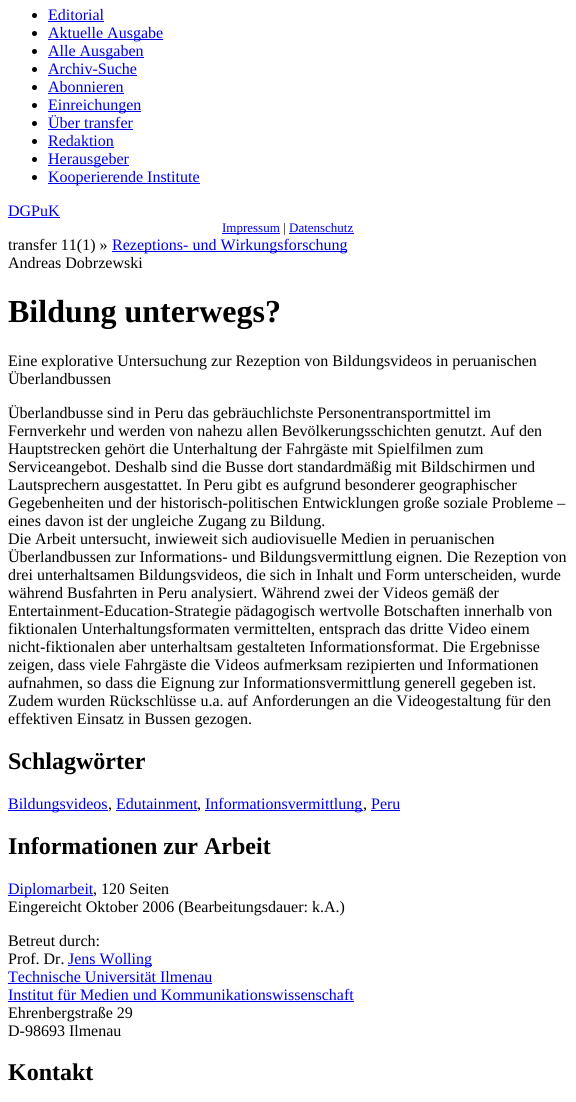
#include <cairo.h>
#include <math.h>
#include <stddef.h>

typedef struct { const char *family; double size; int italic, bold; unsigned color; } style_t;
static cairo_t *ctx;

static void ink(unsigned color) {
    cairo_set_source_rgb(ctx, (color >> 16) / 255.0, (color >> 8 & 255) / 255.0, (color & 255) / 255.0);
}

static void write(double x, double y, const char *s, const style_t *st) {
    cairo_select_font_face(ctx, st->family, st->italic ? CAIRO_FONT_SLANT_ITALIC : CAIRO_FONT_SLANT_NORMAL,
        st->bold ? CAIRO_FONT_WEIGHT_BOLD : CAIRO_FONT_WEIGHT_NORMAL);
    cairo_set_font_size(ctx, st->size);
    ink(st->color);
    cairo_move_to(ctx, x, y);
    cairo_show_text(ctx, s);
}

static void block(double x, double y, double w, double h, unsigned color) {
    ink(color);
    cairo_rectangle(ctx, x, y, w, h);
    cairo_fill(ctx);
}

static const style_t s1 = {"Liberation Serif", 16, 0, 0, 0x0000ee};
static const style_t s2 = {"Liberation Serif", 13, 0, 0, 0x0000ee};
static const style_t s3 = {"Liberation Serif", 13, 0, 0, 0x000000};
static const style_t s4 = {"Liberation Serif", 16, 0, 0, 0x000000};
static const style_t s5 = {"Liberation Serif", 32, 0, 1, 0x000000};
static const style_t s6 = {"Liberation Serif", 24, 0, 1, 0x000000};

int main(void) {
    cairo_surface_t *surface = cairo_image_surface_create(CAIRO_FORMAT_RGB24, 576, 1102);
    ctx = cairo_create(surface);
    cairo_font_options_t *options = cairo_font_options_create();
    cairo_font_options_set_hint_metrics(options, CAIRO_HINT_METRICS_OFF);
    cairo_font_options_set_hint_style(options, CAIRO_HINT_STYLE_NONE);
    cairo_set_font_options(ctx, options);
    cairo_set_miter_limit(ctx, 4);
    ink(0xffffff);
    cairo_paint(ctx);
    ink(0x000000);
    cairo_arc(ctx, 34.5, 15.5, 2.5, 0, 2 * M_PI);
    cairo_fill(ctx);
    write(48, 20, "Editorial", &s1);
    block(48, 21, 56, 1, 0x0000ee);
    ink(0x000000);
    cairo_new_path(ctx);
    cairo_arc(ctx, 34.5, 33.5, 2.5, 0, 2 * M_PI);
    cairo_fill(ctx);
    block(48, 39, 115, 1, 0x0000ee);
    write(48, 38, "Aktuelle Ausgabe", &s1);
    ink(0x000000);
    cairo_new_path(ctx);
    cairo_arc(ctx, 34.5, 51.5, 2.5, 0, 2 * M_PI);
    cairo_fill(ctx);
    block(48, 57, 96, 1, 0x0000ee);
    write(48, 56, "Alle Ausgaben", &s1);
    ink(0x000000);
    cairo_new_path(ctx);
    cairo_arc(ctx, 34.5, 69.5, 2.5, 0, 2 * M_PI);
    cairo_fill(ctx);
    write(48, 74, "Archiv-Suche", &s1);
    block(48, 75, 89, 1, 0x0000ee);
    ink(0x000000);
    cairo_new_path(ctx);
    cairo_arc(ctx, 34.5, 87.5, 2.5, 0, 2 * M_PI);
    cairo_fill(ctx);
    write(48, 92, "Abonnieren", &s1);
    block(48, 93, 76, 1, 0x0000ee);
    ink(0x000000);
    cairo_new_path(ctx);
    cairo_arc(ctx, 34.5, 105.5, 2.5, 0, 2 * M_PI);
    cairo_fill(ctx);
    block(48, 111, 93, 1, 0x0000ee);
    write(48, 110, "Einreichungen", &s1);
    ink(0x000000);
    cairo_new_path(ctx);
    cairo_arc(ctx, 34.5, 123.5, 2.5, 0, 2 * M_PI);
    cairo_fill(ctx);
    write(48, 128, "Über transfer", &s1);
    block(48, 129, 85, 1, 0x0000ee);
    ink(0x000000);
    cairo_new_path(ctx);
    cairo_arc(ctx, 34.5, 141.5, 2.5, 0, 2 * M_PI);
    cairo_fill(ctx);
    write(48, 146, "Redaktion", &s1);
    block(48, 147, 66, 1, 0x0000ee);
    ink(0x000000);
    cairo_new_path(ctx);
    cairo_arc(ctx, 34.5, 159.5, 2.5, 0, 2 * M_PI);
    cairo_fill(ctx);
    block(48, 165, 81, 1, 0x0000ee);
    write(48, 164, "Herausgeber", &s1);
    ink(0x000000);
    cairo_new_path(ctx);
    cairo_arc(ctx, 34.5, 177.5, 2.5, 0, 2 * M_PI);
    cairo_fill(ctx);
    block(48, 183, 152, 1, 0x0000ee);
    write(48, 182, "Kooperierende Institute", &s1);
    write(8, 216, "DGPuK", &s1);
    block(8, 217, 52, 1, 0x0000ee);
    block(222, 233, 58, 1, 0x0000ee);
    write(222, 232, "Impressum", &s2);
    write(283, 232, "|", &s3);
    write(289, 232, "Datenschutz", &s2);
    block(289, 233, 65, 1, 0x0000ee);
    write(8, 250, "transfer 11(1) »", &s4);
    block(112, 251, 235, 1, 0x0000ee);
    write(112, 250, "Rezeptions- und Wirkungsforschung", &s1);
    write(8, 268, "Andreas Dobrzewski", &s4);
    write(8, 322, "Bildung unterwegs?", &s5);
    write(8, 366, "Eine explorative Untersuchung zur Rezeption von Bildungsvideos in peruanischen", &s4);
    write(8, 384, "Überlandbussen", &s4);
    write(8, 418, "Überlandbusse sind in Peru das gebräuchlichste Personentransportmittel im", &s4);
    write(8, 436, "Fernverkehr und werden von nahezu allen Bevölkerungsschichten genutzt. Auf den", &s4);
    write(8, 454, "Hauptstrecken gehört die Unterhaltung der Fahrgäste mit Spielfilmen zum", &s4);
    write(8, 472, "Serviceangebot. Deshalb sind die Busse dort standardmäßig mit Bildschirmen und", &s4);
    write(8, 490, "Lautsprechern ausgestattet. In Peru gibt es aufgrund besonderer geographischer", &s4);
    write(8, 508, "Gegebenheiten und der historisch-politischen Entwicklungen große soziale Probleme –", &s4);
    write(8, 526, "eines davon ist der ungleiche Zugang zu Bildung.", &s4);
    write(8, 544, "Die Arbeit untersucht, inwieweit sich audiovisuelle Medien in peruanischen", &s4);
    write(8, 562, "Überlandbussen zur Informations- und Bildungsvermittlung eignen. Die Rezeption von", &s4);
    write(8, 580, "drei unterhaltsamen Bildungsvideos, die sich in Inhalt und Form unterscheiden, wurde", &s4);
    write(8, 598, "während Busfahrten in Peru analysiert. Während zwei der Videos gemäß der", &s4);
    write(8, 616, "Entertainment-Education-Strategie pädagogisch wertvolle Botschaften innerhalb von", &s4);
    write(8, 634, "fiktionalen Unterhaltungsformaten vermittelten, entsprach das dritte Video einem", &s4);
    write(8, 652, "nicht-fiktionalen aber unterhaltsam gestalteten Informationsformat. Die Ergebnisse", &s4);
    write(8, 670, "zeigen, dass viele Fahrgäste die Videos aufmerksam rezipierten und Informationen", &s4);
    write(8, 688, "aufnahmen, so dass die Eignung zur Informationsvermittlung generell gegeben ist.", &s4);
    write(8, 706, "Zudem wurden Rückschlüsse u.a. auf Anforderungen an die Videogestaltung für den", &s4);
    write(8, 724, "effektiven Einsatz in Bussen gezogen.", &s4);
    write(8, 769, "Schlagwörter", &s6);
    block(8, 810, 100, 1, 0x0000ee);
    write(8, 809, "Bildungsvideos", &s1);
    write(108, 809, ",", &s4);
    write(116, 809, "Edutainment", &s1);
    block(116, 810, 81, 1, 0x0000ee);
    write(197, 809, ",", &s4);
    block(205, 810, 158, 1, 0x0000ee);
    write(205, 809, "Informationsvermittlung", &s1);
    write(363, 809, ",", &s4);
    write(371, 809, "Peru", &s1);
    block(371, 810, 29, 1, 0x0000ee);
    write(8, 854, "Informationen zur Arbeit", &s6);
    block(8, 895, 85, 1, 0x0000ee);
    write(8, 894, "Diplomarbeit", &s1);
    write(93, 894, ", 120 Seiten", &s4);
    write(8, 912, "Eingereicht Oktober 2006 (Bearbeitungsdauer: k.A.)", &s4);
    write(8, 946, "Betreut durch:", &s4);
    write(8, 964, "Prof. Dr.", &s4);
    block(68, 965, 84, 1, 0x0000ee);
    write(68, 964, "Jens Wolling", &s1);
    write(8, 982, "Technische Universität Ilmenau", &s1);
    block(8, 983, 204, 1, 0x0000ee);
    write(8, 1000, "Institut für Medien und Kommunikationswissenschaft", &s1);
    block(8, 1001, 346, 1, 0x0000ee);
    write(8, 1018, "Ehrenbergstraße 29", &s4);
    write(8, 1036, "D-98693 Ilmenau", &s4);
    write(8, 1080, "Kontakt", &s6);
    cairo_surface_write_to_png(surface, "screenshot.png");
    cairo_font_options_destroy(options);
    cairo_destroy(ctx);
    cairo_surface_destroy(surface);
    return 0;
}
